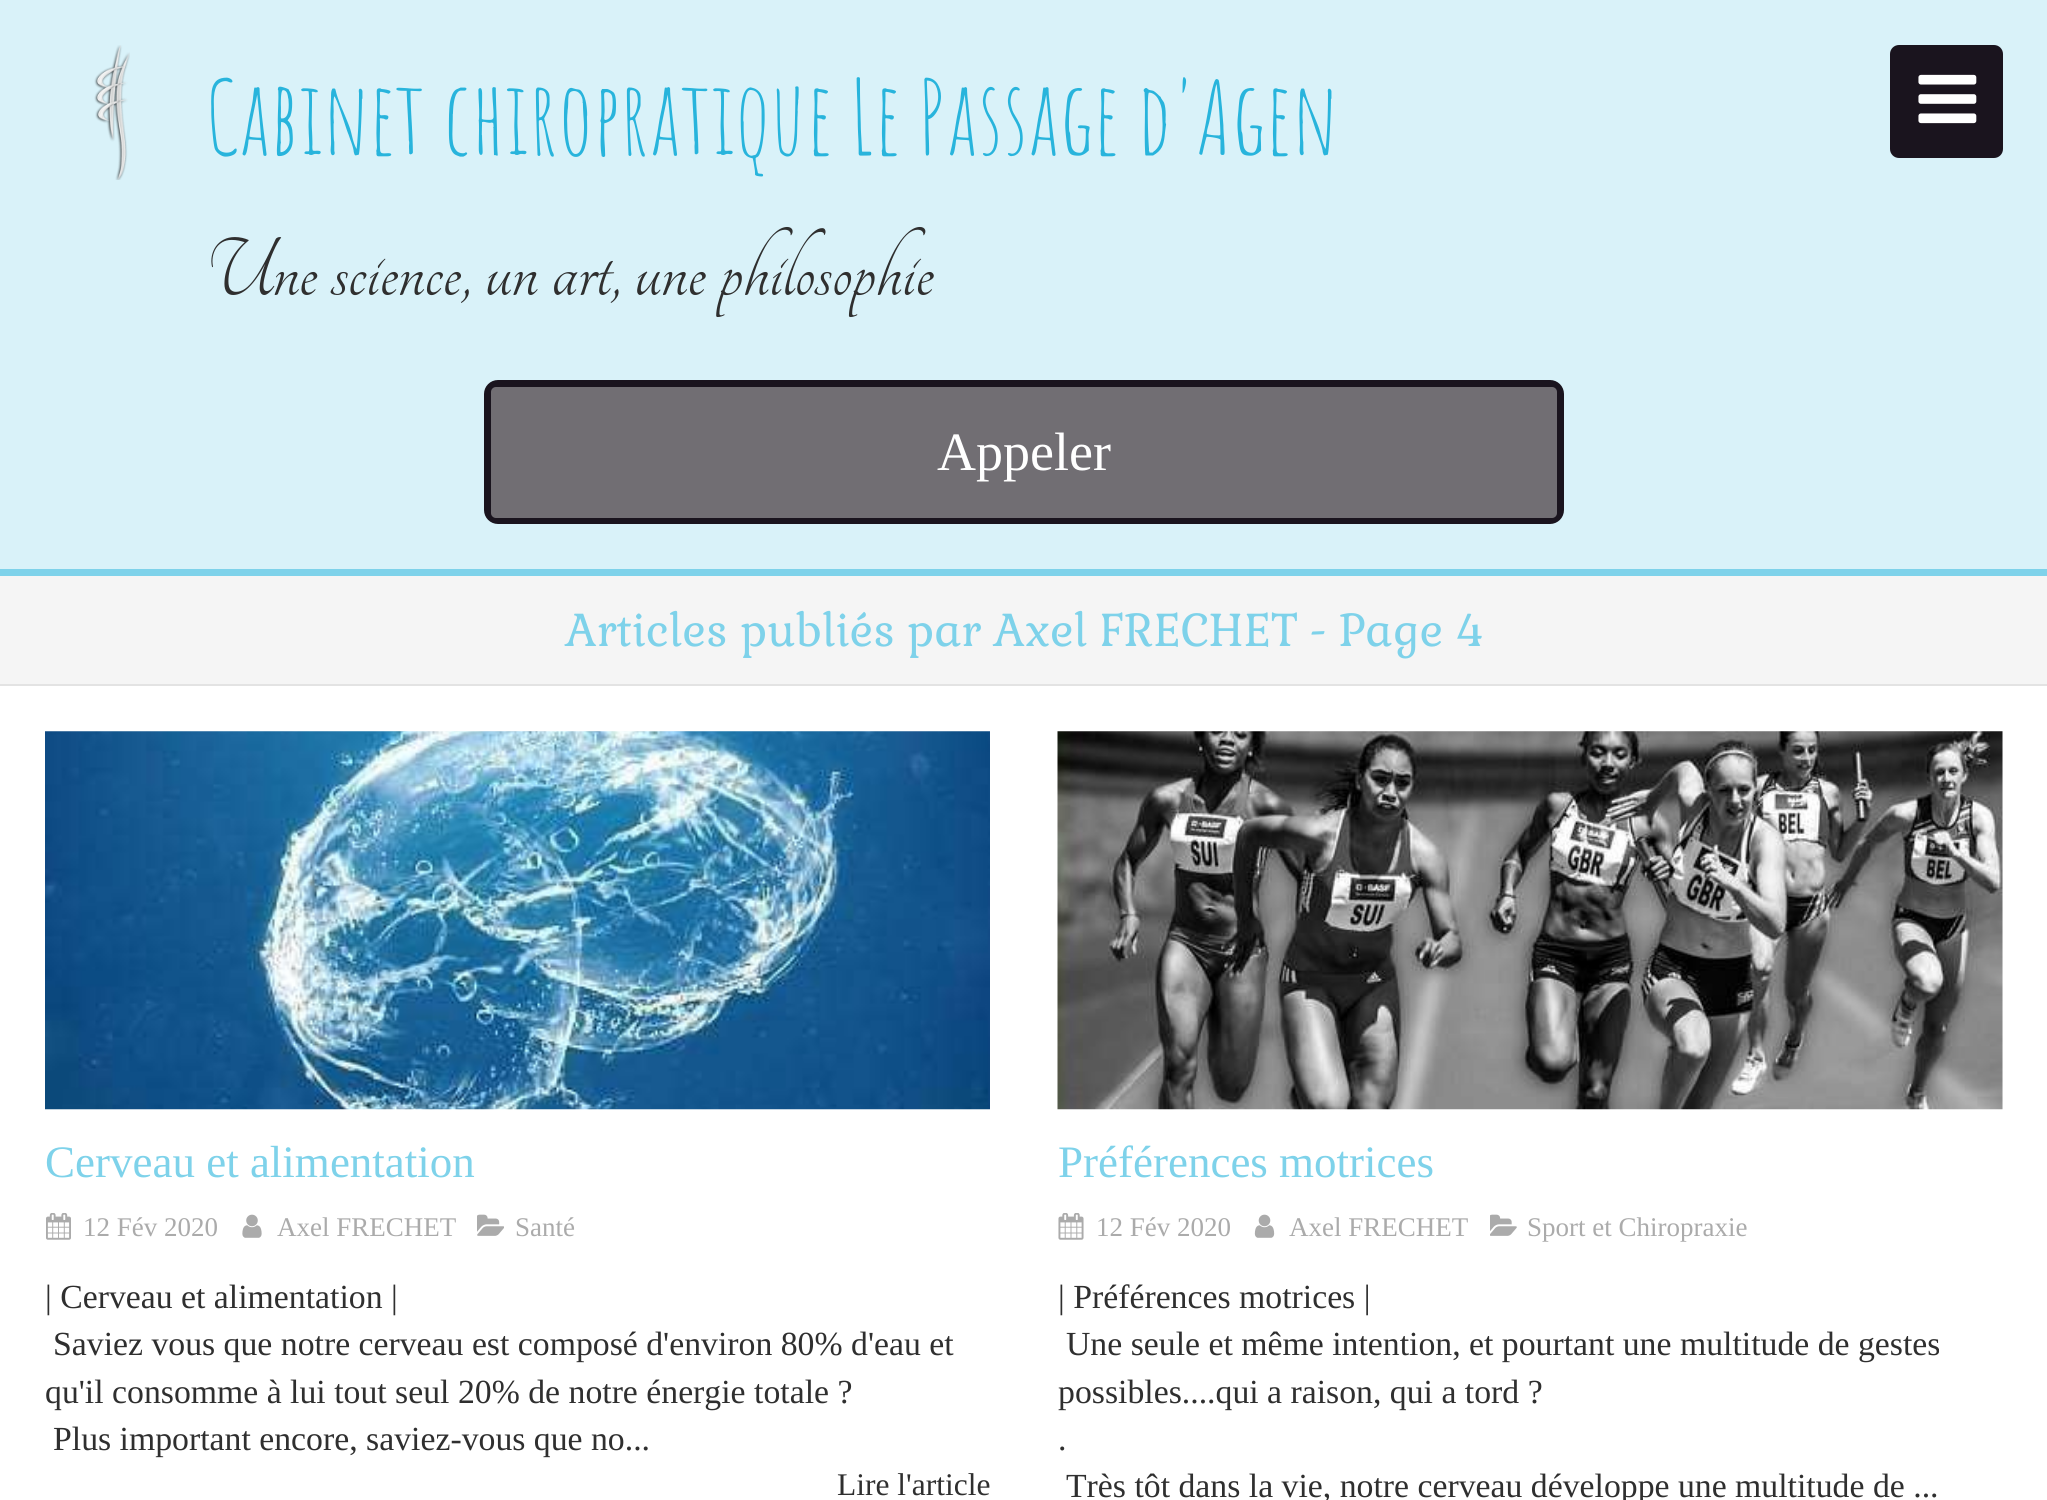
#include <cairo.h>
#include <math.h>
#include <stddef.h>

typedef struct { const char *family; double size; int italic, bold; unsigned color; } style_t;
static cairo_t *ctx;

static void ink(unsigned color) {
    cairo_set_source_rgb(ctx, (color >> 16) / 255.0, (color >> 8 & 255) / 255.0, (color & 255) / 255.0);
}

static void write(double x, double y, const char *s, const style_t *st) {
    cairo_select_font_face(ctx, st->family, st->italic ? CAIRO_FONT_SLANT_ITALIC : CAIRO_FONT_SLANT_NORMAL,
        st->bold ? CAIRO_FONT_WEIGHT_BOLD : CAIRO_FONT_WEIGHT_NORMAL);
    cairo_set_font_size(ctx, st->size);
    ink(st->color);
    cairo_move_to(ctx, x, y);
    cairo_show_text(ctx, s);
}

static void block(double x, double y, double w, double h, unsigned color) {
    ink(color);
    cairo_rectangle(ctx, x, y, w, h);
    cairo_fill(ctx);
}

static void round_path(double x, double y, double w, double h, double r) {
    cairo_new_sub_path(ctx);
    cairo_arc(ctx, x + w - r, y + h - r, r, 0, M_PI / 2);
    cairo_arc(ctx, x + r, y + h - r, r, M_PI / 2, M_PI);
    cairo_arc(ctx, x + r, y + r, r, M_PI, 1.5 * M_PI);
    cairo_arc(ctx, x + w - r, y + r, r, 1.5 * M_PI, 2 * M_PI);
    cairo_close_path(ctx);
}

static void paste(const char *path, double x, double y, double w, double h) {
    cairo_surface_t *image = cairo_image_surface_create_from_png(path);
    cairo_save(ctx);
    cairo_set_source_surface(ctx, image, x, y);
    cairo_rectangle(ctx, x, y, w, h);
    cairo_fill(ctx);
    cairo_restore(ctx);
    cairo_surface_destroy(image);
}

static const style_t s1 = {"Amatic SC", 101.25, 0, 0, 0x28b4dc};
static const style_t s2 = {"Tangerine", 90, 0, 0, 0x2f2f2f};
static const style_t s3 = {"Liberation Serif", 54, 0, 0, 0xffffff};
static const style_t s4 = {"Gabriela", 45, 0, 0, 0x7ed2ea};
static const style_t s5 = {"Liberation Serif", 45, 0, 0, 0x7ed2ea};
static const style_t s6 = {"Liberation Serif", 27, 0, 0, 0xababab};
static const style_t s7 = {"Liberation Serif", 33.75, 0, 0, 0x2f2f2f};
static const style_t s8 = {"Liberation Serif", 31.5, 0, 0, 0x2f2f2f};

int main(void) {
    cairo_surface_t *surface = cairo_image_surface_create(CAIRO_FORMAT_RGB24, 2047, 1500);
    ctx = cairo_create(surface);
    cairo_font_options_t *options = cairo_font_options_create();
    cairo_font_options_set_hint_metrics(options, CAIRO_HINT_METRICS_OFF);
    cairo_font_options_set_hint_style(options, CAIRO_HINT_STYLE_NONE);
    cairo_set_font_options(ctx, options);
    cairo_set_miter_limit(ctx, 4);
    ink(0xffffff);
    cairo_paint(ctx);
    block(0, 0, 2047, 569, 0xd9f2f9);
    block(0, 569, 2047, 7, 0x7ed2ea);
    paste("pic1.png", 94, 45, 36, 135);
    write(205, 155, "Cabinet chiropratique Le Passage d'Agen", &s1);
    write(205, 295, "Une science, un art, une philosophie", &s2);
    ink(0x1a141e);
    round_path(1890, 45, 113, 113, 9);
    cairo_fill(ctx);
    paste("pic2.png", 1918, 74, 59, 50);
    round_path(484, 380, 1080, 144, 14);
    cairo_fill(ctx);
    ink(0x716e73);
    round_path(491, 387, 1066, 131, 5);
    cairo_fill(ctx);
    write(937, 470, "Appeler", &s3);
    block(0, 576, 2047, 108, 0xf5f5f5);
    block(0, 684, 2047, 2, 0xe3e3e3);
    write(565, 646, "Articles publiés par Axel FRECHET - Page 4", &s4);
    paste("pic3.png", 45, 731, 945, 379);
    write(45, 1177, "Cerveau et alimentation", &s5);
    paste("pic4.png", 46, 1213, 25, 27);
    write(83, 1236, "12 Fév 2020", &s6);
    paste("pic5.png", 242, 1214, 20, 24);
    write(277, 1236, "Axel FRECHET", &s6);
    paste("pic6.png", 477, 1214, 27, 22);
    write(515, 1236, "Santé", &s6);
    write(45, 1308, "| Cerveau et alimentation |", &s7);
    write(53, 1355, "Saviez vous que notre cerveau est composé d'environ 80% d'eau et", &s7);
    write(45, 1403, "qu'il consomme à lui tout seul 20% de notre énergie totale ?", &s7);
    write(53, 1450, "Plus important encore, saviez-vous que no...", &s7);
    write(837, 1495, "Lire l'article", &s8);
    block(1058, 731, 945, 378, 0xfafafa);
    paste("pic7.png", 1057, 731, 946, 379);
    write(1058, 1177, "Préférences motrices", &s5);
    paste("pic8.png", 1058, 1213, 26, 27);
    write(1096, 1236, "12 Fév 2020", &s6);
    paste("pic9.png", 1254, 1214, 21, 24);
    write(1289, 1236, "Axel FRECHET", &s6);
    paste("pic10.png", 1490, 1214, 27, 22);
    write(1527, 1236, "Sport et Chiropraxie", &s6);
    write(1058, 1308, "| Préférences motrices |", &s7);
    write(1066, 1355, "Une seule et même intention, et pourtant une multitude de gestes", &s7);
    write(1058, 1403, "possibles....qui a raison, qui a tord ?", &s7);
    write(1058, 1450, ".", &s7);
    write(1066, 1497, "Très tôt dans la vie, notre cerveau développe une multitude de ...", &s7);
    cairo_surface_write_to_png(surface, "screenshot.png");
    cairo_font_options_destroy(options);
    cairo_destroy(ctx);
    cairo_surface_destroy(surface);
    return 0;
}
